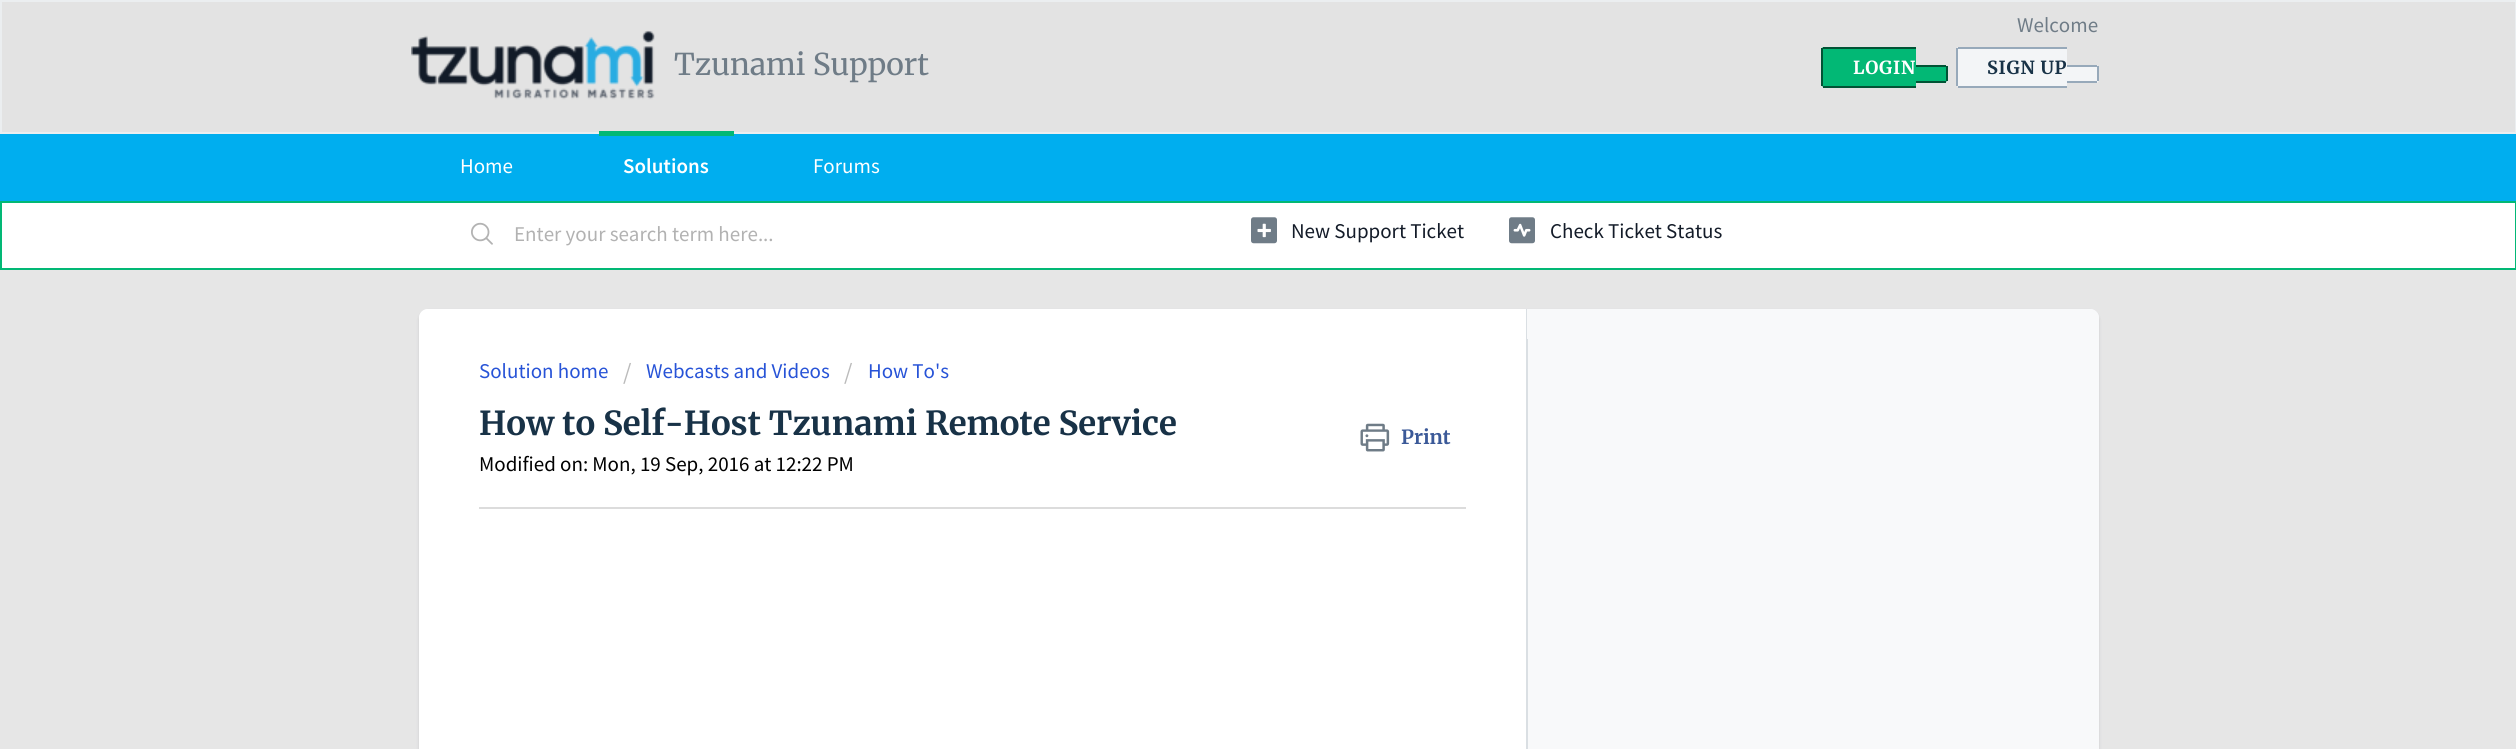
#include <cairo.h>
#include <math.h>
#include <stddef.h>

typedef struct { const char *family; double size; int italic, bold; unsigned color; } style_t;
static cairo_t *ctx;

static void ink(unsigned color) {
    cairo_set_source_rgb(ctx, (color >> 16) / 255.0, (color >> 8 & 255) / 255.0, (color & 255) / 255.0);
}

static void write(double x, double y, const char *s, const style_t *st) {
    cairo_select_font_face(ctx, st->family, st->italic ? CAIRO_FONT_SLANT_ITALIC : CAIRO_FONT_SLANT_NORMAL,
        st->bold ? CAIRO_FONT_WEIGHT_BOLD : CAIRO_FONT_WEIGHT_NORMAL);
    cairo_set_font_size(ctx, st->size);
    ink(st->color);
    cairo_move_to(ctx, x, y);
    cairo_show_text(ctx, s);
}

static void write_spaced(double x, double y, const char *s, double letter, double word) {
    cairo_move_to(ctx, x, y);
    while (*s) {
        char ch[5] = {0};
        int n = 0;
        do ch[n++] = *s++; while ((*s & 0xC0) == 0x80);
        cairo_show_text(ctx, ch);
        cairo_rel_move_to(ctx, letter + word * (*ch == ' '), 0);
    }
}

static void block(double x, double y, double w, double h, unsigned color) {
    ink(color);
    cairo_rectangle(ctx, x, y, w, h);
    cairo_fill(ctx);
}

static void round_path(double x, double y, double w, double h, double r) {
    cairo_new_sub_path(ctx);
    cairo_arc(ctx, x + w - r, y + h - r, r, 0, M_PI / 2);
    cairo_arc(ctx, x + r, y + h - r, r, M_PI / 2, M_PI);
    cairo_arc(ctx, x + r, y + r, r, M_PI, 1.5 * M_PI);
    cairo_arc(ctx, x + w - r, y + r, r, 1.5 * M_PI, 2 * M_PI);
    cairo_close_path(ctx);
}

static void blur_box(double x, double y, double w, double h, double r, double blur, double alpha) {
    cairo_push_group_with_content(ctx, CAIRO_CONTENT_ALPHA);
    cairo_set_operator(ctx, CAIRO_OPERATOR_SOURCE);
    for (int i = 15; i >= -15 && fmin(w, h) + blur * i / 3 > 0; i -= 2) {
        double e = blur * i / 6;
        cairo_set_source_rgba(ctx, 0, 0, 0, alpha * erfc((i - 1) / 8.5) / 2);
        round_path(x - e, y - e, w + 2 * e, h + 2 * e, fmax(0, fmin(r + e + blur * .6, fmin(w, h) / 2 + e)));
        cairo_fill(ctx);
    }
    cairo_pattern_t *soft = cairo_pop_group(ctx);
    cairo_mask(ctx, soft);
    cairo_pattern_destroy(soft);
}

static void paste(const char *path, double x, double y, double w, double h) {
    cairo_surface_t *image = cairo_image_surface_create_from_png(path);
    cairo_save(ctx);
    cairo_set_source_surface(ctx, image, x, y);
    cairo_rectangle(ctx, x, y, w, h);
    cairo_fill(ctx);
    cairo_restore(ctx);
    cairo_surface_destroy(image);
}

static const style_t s1 = {"Merriweather", 30, 0, 0, 0x6f7c87};
static const style_t s2 = {"Source Sans Pro", 21, 0, 0, 0x6f7c87};
static const style_t s3 = {"Source Sans Pro", 21, 0, 0, 0xffffff};
static const style_t s4 = {"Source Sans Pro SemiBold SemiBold", 21, 0, 0, 0xffffff};
static const style_t s5 = {"Source Sans Pro", 21, 0, 0, 0xb2b2b2};
static const style_t s6 = {"Source Sans Pro", 21, 0, 0, 0x131b28};
static const style_t s7 = {"Source Sans Pro", 21, 0, 0, 0x2753d7};
static const style_t s8 = {"Source Sans Pro", 24, 0, 0, 0xbbbbbb};
static const style_t s9 = {"Merriweather", 33, 0, 1, 0x183247};
static const style_t s10 = {"Merriweather", 19.5, 0, 1, 0x3b5998};
static const style_t s11 = {"Source Sans Pro", 21, 0, 0, 0x000000};

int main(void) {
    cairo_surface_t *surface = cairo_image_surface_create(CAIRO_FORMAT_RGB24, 2516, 749);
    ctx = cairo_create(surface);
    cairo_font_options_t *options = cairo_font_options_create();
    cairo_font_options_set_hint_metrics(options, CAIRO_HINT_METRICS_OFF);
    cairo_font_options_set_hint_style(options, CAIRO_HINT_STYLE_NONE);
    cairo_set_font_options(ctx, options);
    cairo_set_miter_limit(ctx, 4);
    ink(0xe6e6e6);
    cairo_paint(ctx);
    ink(0xe3e3e3);
    cairo_rectangle(ctx, 1, 1, 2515, 132);
    cairo_fill_preserve(ctx);
    ink(0xebeef0);
    cairo_stroke(ctx);
    paste("pic1.png", 411, 30, 244, 70);
    write(674, 75, "Tzunami Support", &s1);
    write(2017, 32, "Welcome", &s2);
    ink(0x02b875);
    cairo_new_path(ctx);
    cairo_move_to(ctx, 1824, 47);
    cairo_line_to(ctx, 1916, 47);
    cairo_line_to(ctx, 1916, 87);
    cairo_line_to(ctx, 1824, 87);
    cairo_curve_to(ctx, 1822.5, 87, 1821, 85.5, 1821, 84);
    cairo_line_to(ctx, 1821, 50);
    cairo_curve_to(ctx, 1821, 48.5, 1822.5, 47, 1824, 47);
    cairo_close_path(ctx);
    cairo_fill(ctx);
    cairo_select_font_face(ctx, "Merriweather", CAIRO_FONT_SLANT_NORMAL, CAIRO_FONT_WEIGHT_BOLD);
    cairo_set_font_size(ctx, 18);
    ink(0xffffff);
    write_spaced(1853, 74, "LOGIN", 0.75, 0);
    block(1823, 47, 93, 2, 0x015335);
    block(1823, 86, 93, 2, 0x015335);
    block(1821, 48, 2, 38, 0x015335);
    ink(0x02b875);
    cairo_new_path(ctx);
    cairo_move_to(ctx, 1916, 65);
    cairo_line_to(ctx, 1944, 65);
    cairo_curve_to(ctx, 1945.5, 65, 1947, 66.5, 1947, 68);
    cairo_line_to(ctx, 1947, 80);
    cairo_curve_to(ctx, 1947, 81.5, 1945.5, 83, 1944, 83);
    cairo_line_to(ctx, 1916, 83);
    cairo_close_path(ctx);
    cairo_fill(ctx);
    block(1916, 65, 30, 2, 0x015335);
    block(1946, 66, 2, 15, 0x015335);
    block(1916, 81, 30, 2, 0x015335);
    ink(0xf3f5f7);
    cairo_new_path(ctx);
    cairo_move_to(ctx, 1959, 47);
    cairo_line_to(ctx, 2067, 47);
    cairo_line_to(ctx, 2067, 87);
    cairo_line_to(ctx, 1959, 87);
    cairo_curve_to(ctx, 1957.5, 87, 1956, 85.5, 1956, 84);
    cairo_line_to(ctx, 1956, 50);
    cairo_curve_to(ctx, 1956, 48.5, 1957.5, 47, 1959, 47);
    cairo_close_path(ctx);
    cairo_fill(ctx);
    ink(0x183247);
    write_spaced(1987, 74, "SIGN UP", 0.75, 0);
    block(1958, 47, 109, 2, 0x97a9ba);
    block(1958, 86, 109, 2, 0x97a9ba);
    block(1956, 48, 2, 38, 0x97a9ba);
    ink(0xf3f5f7);
    cairo_new_path(ctx);
    cairo_move_to(ctx, 2067, 65);
    cairo_line_to(ctx, 2096, 65);
    cairo_curve_to(ctx, 2097.5, 65, 2099, 66.5, 2099, 68);
    cairo_line_to(ctx, 2099, 80);
    cairo_curve_to(ctx, 2099, 81.5, 2097.5, 83, 2096, 83);
    cairo_line_to(ctx, 2067, 83);
    cairo_close_path(ctx);
    cairo_fill(ctx);
    block(2067, 65, 30, 2, 0x97a9ba);
    block(2097, 66, 2, 15, 0x97a9ba);
    block(2067, 81, 30, 2, 0x97a9ba);
    block(0, 134, 2516, 67, 0x00aeef);
    write(460, 173, "Home", &s3);
    block(599, 131, 135, 5, 0x02b875);
    write(623, 173, "Solutions", &s4);
    write(813, 173, "Forums", &s3);
    cairo_rectangle(ctx, 1, 202, 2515, 67);
    cairo_fill_preserve(ctx);
    ink(0x02b875);
    cairo_stroke(ctx);
    paste("pic2.png", 471, 222, 22, 23);
    write(514, 241, "Enter your search term here...", &s5);
    paste("pic3.png", 1251, 217, 26, 27);
    write(1291, 238, "New Support Ticket", &s6);
    paste("pic4.png", 1509, 217, 26, 27);
    write(1550, 238, "Check Ticket Status", &s6);
    ink(0x3f3f44);
    blur_box(419, 311, 1680, 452, 9, 1.5, 0.15);
    ink(0xf8f9fa);
    round_path(419, 309, 1680, 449, 9);
    cairo_fill(ctx);
    ink(0xffffff);
    cairo_new_path(ctx);
    cairo_move_to(ctx, 428, 309);
    cairo_line_to(ctx, 1527, 309);
    cairo_line_to(ctx, 1527, 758);
    cairo_line_to(ctx, 428, 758);
    cairo_curve_to(ctx, 423, 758, 419, 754, 419, 749);
    cairo_line_to(ctx, 419, 318);
    cairo_curve_to(ctx, 419, 313, 423, 309, 428, 309);
    cairo_close_path(ctx);
    cairo_fill(ctx);
    block(1526, 309, 2, 440, 0xdadfe3);
    ink(0xf8f9fa);
    cairo_new_path(ctx);
    cairo_move_to(ctx, 1527, 309);
    cairo_line_to(ctx, 2090, 309);
    cairo_curve_to(ctx, 2095, 309, 2099, 313, 2099, 318);
    cairo_line_to(ctx, 2099, 330);
    cairo_curve_to(ctx, 2099, 335, 2095, 339, 2090, 339);
    cairo_line_to(ctx, 1527, 339);
    cairo_close_path(ctx);
    cairo_fill(ctx);
    write(479, 378, "Solution home", &s7);
    write(623, 380, "/", &s8);
    write(646, 378, "Webcasts and Videos", &s7);
    write(844, 380, "/", &s8);
    write(868, 378, "How To's", &s7);
    write(479, 435, "How to Self-Host Tzunami Remote Service", &s9);
    paste("pic5.png", 1360, 423, 30, 29);
    write(1401, 444, "Print", &s10);
    write(479, 471, "Modified on: Mon, 19 Sep, 2016 at 12:22 PM", &s11);
    block(479, 507, 987, 2, 0xdcdcdc);
    cairo_surface_write_to_png(surface, "screenshot.png");
    cairo_font_options_destroy(options);
    cairo_destroy(ctx);
    cairo_surface_destroy(surface);
    return 0;
}
